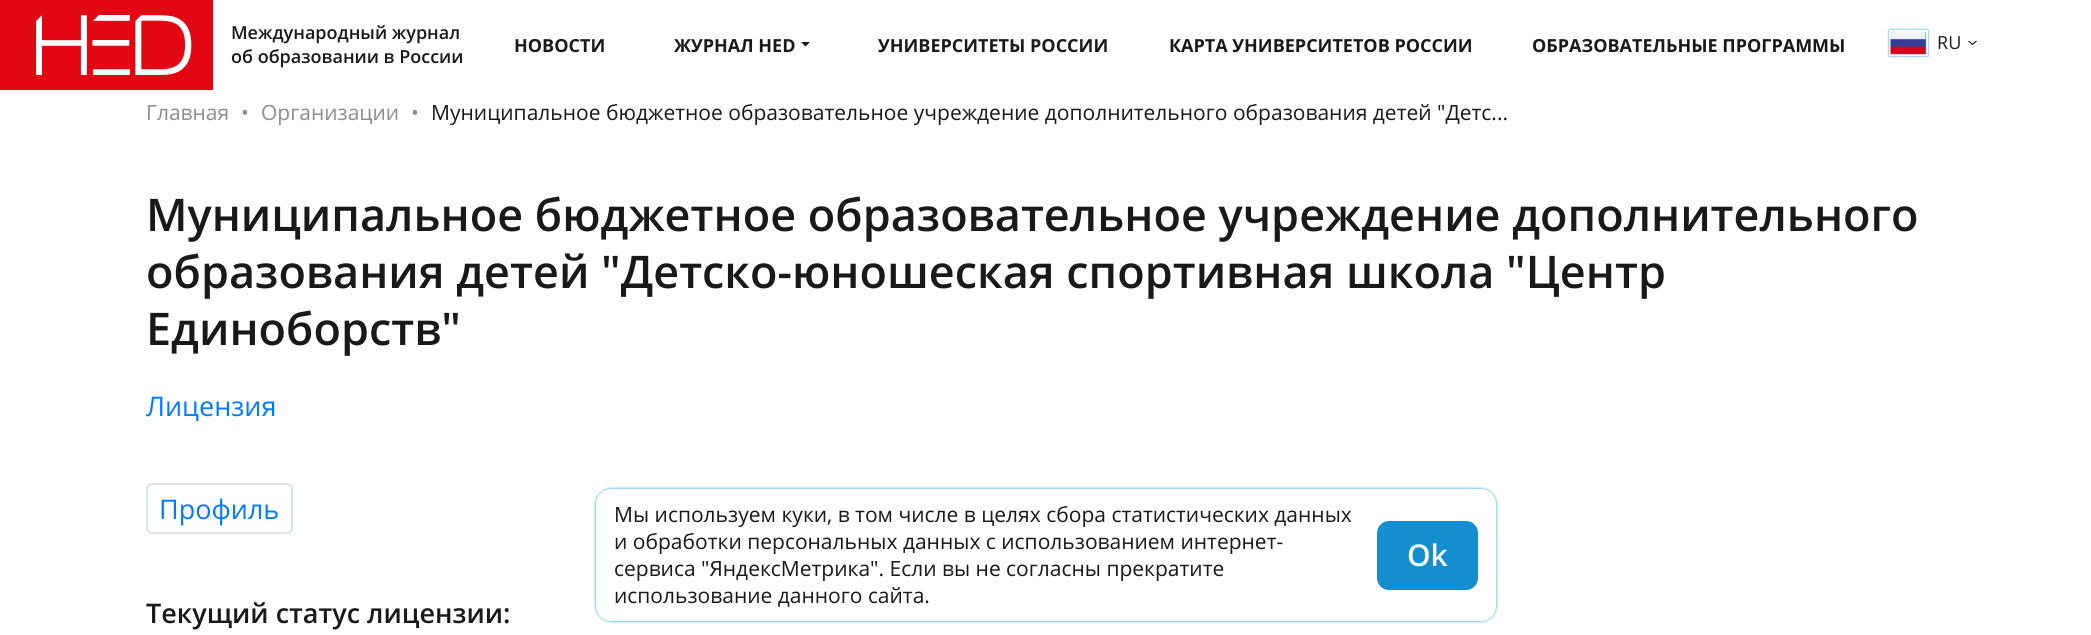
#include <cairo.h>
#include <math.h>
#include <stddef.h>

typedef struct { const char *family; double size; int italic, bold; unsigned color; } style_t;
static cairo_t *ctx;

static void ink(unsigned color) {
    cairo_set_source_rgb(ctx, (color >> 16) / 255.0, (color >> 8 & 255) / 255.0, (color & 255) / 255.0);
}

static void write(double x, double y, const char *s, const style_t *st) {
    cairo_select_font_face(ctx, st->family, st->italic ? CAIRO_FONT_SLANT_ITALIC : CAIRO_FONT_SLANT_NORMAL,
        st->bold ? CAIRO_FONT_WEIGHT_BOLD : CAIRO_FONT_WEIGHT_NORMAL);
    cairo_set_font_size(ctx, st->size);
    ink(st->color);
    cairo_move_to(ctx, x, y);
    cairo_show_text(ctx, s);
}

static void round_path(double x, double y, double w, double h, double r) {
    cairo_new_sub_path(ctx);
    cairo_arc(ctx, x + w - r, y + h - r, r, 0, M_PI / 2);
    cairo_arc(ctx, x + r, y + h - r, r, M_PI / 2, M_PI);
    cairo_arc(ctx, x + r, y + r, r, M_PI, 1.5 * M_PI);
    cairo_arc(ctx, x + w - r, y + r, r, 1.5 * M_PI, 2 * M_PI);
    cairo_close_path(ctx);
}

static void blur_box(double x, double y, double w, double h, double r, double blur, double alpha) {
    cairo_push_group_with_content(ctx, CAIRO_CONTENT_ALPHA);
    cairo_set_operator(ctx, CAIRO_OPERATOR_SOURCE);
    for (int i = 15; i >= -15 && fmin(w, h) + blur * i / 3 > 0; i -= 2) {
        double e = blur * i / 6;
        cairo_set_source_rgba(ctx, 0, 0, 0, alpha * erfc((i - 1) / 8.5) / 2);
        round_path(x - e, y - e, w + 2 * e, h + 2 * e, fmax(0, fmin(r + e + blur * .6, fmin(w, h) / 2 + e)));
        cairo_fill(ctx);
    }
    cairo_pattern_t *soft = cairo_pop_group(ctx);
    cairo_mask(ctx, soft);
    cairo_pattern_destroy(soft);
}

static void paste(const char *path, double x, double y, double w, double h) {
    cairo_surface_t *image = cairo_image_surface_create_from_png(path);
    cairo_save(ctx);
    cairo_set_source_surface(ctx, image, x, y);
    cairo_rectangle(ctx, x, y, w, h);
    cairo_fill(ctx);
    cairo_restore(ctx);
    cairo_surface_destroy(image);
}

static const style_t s1 = {"Open Sans SemiBold", 18, 0, 0, 0x191919};
static const style_t s2 = {"Open Sans", 18, 0, 1, 0x191919};
static const style_t s3 = {"Open Sans", 18, 0, 0, 0x191919};
static const style_t s4 = {"Open Sans", 21, 0, 0, 0x8d8d8d};
static const style_t s5 = {"Open Sans", 21, 0, 0, 0x191919};
static const style_t s6 = {"Open Sans SemiBold", 45, 0, 0, 0x191919};
static const style_t s7 = {"Open Sans", 27, 0, 0, 0x007bff};
static const style_t s8 = {"Open Sans SemiBold", 27, 0, 0, 0x191919};
static const style_t s9 = {"Open Sans SemiBold", 30, 0, 0, 0xffffff};

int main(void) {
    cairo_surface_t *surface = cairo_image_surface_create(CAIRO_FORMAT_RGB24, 2091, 635);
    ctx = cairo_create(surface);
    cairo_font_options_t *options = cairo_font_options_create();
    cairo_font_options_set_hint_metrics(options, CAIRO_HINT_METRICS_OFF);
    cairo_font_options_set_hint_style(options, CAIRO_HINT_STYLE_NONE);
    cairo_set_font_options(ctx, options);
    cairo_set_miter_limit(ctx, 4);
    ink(0xffffff);
    cairo_paint(ctx);
    paste("pic1.png", 0, 0, 213, 90);
    write(231, 39, "Международный журнал", &s1);
    write(231, 63, "об образовании в России", &s1);
    write(514, 52, "НОВОСТИ", &s2);
    write(674, 52, "ЖУРНАЛ HED", &s2);
    cairo_new_path(ctx);
    cairo_move_to(ctx, 801, 42);
    cairo_line_to(ctx, 810, 42);
    cairo_line_to(ctx, 805.5, 46.5);
    cairo_close_path(ctx);
    cairo_fill(ctx);
    write(878, 52, "УНИВЕРСИТЕТЫ РОССИИ", &s2);
    write(1169, 52, "КАРТА УНИВЕРСИТЕТОВ РОССИИ", &s2);
    write(1532, 52, "ОБРАЗОВАТЕЛЬНЫЕ ПРОГРАММЫ", &s2);
    ink(0x148ece);
    blur_box(1889, 30, 39, 26, 0, 1, 1);
    cairo_rectangle(ctx, 1890, 31, 37, 24);
    ink(0xffffff);
    cairo_stroke(ctx);
    paste("pic2.png", 1889, 31, 38, 24);
    write(1937, 49, "RU", &s3);
    paste("pic3.png", 1968, 41, 9, 4);
    write(146, 120, "Главная", &s4);
    write(241, 120, "•", &s4);
    write(261, 120, "Организации", &s4);
    write(411, 120, "•", &s4);
    write(431, 120, "Муниципальное бюджетное образовательное учреждение дополнительного образования детей \"Детс...", &s5);
    write(146, 231, "Муниципальное бюджетное образовательное учреждение дополнительного", &s6);
    write(146, 288, "образования детей \"Детско-юношеская спортивная школа \"Центр", &s6);
    write(146, 345, "Единоборств\"", &s6);
    write(146, 416, "Лицензия", &s7);
    round_path(147, 484, 145, 49, 5);
    ink(0xdee2e6);
    cairo_stroke(ctx);
    write(159, 519, "Профиль", &s7);
    write(146, 623, "Текущий статус лицензии:", &s8);
    ink(0x148ece);
    blur_box(596, 489, 900, 132, 15, 1.5, 1);
    ink(0xffffff);
    round_path(596, 489, 900, 132, 15);
    cairo_fill(ctx);
    write(614, 522, "Мы используем куки, в том числе в целях сбора статистических данных", &s5);
    write(614, 549, "и обработки персональных данных с использованием интернет-", &s5);
    write(614, 576, "сервиса \"ЯндексМетрика\". Если вы не согласны прекратите", &s5);
    write(614, 603, "использование данного сайта.", &s5);
    ink(0x148ece);
    round_path(1377, 521, 101, 69, 12);
    cairo_fill(ctx);
    write(1407, 566, "Ok", &s9);
    cairo_surface_write_to_png(surface, "screenshot.png");
    cairo_font_options_destroy(options);
    cairo_destroy(ctx);
    cairo_surface_destroy(surface);
    return 0;
}
